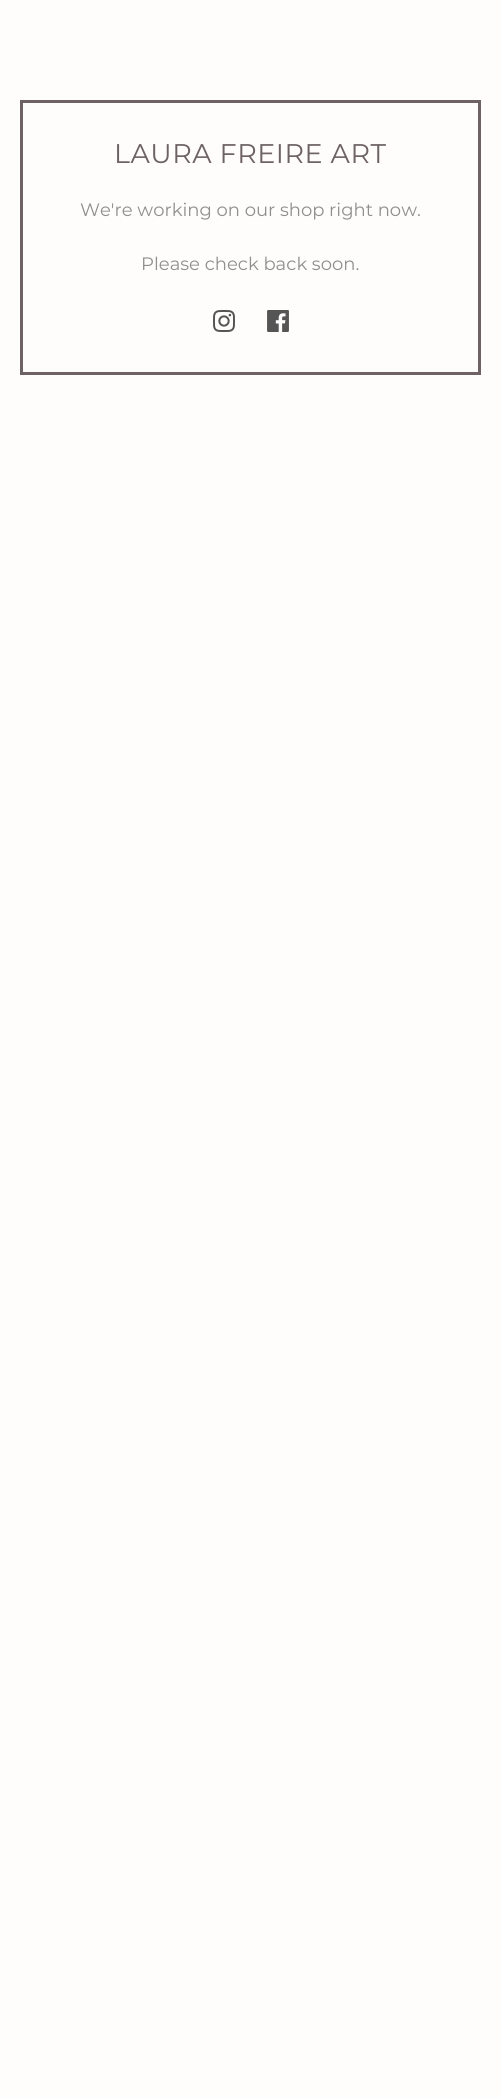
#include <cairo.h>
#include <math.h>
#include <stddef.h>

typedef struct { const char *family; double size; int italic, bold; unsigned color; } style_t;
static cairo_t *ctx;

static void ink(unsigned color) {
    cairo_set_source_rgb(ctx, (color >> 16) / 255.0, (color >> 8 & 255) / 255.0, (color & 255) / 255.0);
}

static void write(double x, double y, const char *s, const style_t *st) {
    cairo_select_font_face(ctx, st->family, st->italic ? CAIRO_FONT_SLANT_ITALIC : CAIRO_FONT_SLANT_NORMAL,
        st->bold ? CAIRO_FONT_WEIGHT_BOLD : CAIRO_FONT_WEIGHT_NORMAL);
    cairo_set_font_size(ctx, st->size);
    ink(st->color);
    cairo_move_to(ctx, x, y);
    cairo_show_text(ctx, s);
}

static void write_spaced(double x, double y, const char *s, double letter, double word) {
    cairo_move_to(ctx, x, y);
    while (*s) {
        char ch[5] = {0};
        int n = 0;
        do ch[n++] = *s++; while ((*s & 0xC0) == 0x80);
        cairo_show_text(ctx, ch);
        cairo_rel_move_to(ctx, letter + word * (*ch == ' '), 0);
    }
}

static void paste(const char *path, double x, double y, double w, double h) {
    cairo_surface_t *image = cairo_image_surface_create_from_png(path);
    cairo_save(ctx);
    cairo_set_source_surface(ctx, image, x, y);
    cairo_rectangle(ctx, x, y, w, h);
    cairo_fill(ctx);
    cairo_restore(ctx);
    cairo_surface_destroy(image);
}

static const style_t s1 = {"Montserrat", 18, 0, 0, 0x8f8f8f};

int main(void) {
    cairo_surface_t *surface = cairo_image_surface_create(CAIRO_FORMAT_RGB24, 501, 2098);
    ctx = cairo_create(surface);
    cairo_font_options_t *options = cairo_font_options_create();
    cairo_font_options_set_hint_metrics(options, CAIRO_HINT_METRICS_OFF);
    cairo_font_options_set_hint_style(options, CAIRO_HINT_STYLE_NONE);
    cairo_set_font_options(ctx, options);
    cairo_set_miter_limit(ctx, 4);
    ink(0xfffcfc);
    cairo_paint(ctx);
    cairo_rectangle(ctx, 21.5, 101.5, 458, 272);
    ink(0x6d6363);
    cairo_set_line_width(ctx, 3);
    cairo_stroke(ctx);
    cairo_select_font_face(ctx, "Montserrat", CAIRO_FONT_SLANT_NORMAL, CAIRO_FONT_WEIGHT_NORMAL);
    cairo_set_font_size(ctx, 27);
    write_spaced(114, 163, "LAURA FREIRE ART", 0.5, 0);
    write(80, 216, "We're working on our shop right now.", &s1);
    write(141, 270, "Please check back soon.", &s1);
    paste("pic1.png", 213, 310, 22, 22);
    paste("pic2.png", 267, 310, 22, 22);
    cairo_surface_write_to_png(surface, "screenshot.png");
    cairo_font_options_destroy(options);
    cairo_destroy(ctx);
    cairo_surface_destroy(surface);
    return 0;
}
